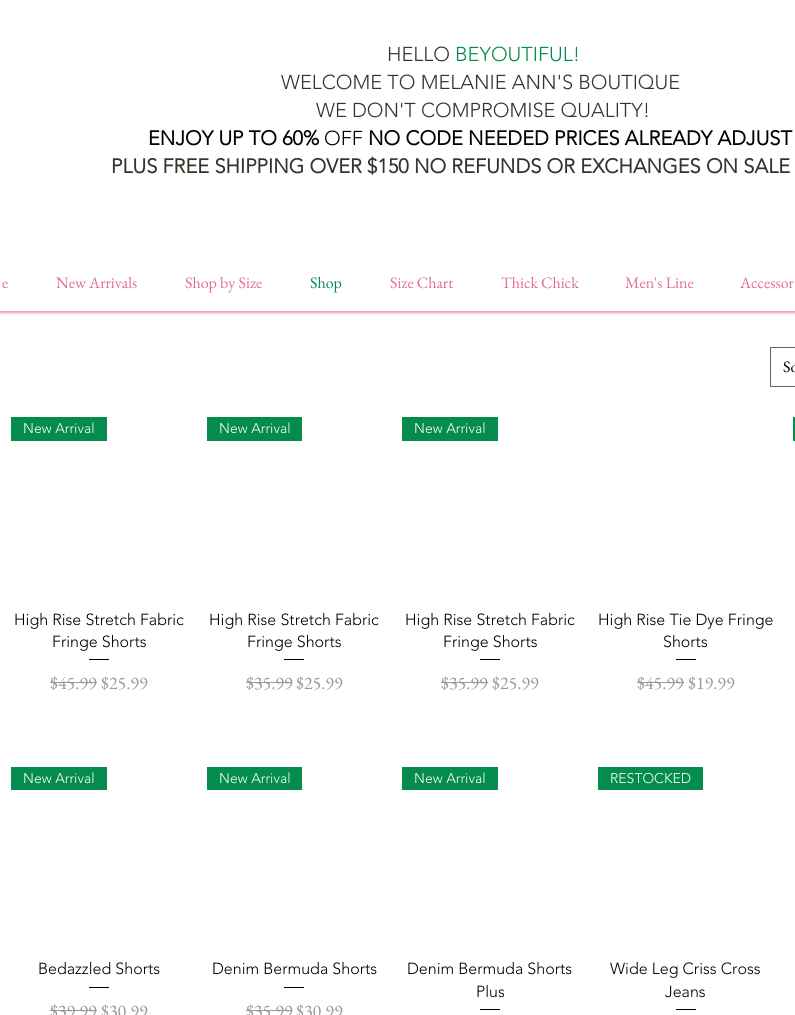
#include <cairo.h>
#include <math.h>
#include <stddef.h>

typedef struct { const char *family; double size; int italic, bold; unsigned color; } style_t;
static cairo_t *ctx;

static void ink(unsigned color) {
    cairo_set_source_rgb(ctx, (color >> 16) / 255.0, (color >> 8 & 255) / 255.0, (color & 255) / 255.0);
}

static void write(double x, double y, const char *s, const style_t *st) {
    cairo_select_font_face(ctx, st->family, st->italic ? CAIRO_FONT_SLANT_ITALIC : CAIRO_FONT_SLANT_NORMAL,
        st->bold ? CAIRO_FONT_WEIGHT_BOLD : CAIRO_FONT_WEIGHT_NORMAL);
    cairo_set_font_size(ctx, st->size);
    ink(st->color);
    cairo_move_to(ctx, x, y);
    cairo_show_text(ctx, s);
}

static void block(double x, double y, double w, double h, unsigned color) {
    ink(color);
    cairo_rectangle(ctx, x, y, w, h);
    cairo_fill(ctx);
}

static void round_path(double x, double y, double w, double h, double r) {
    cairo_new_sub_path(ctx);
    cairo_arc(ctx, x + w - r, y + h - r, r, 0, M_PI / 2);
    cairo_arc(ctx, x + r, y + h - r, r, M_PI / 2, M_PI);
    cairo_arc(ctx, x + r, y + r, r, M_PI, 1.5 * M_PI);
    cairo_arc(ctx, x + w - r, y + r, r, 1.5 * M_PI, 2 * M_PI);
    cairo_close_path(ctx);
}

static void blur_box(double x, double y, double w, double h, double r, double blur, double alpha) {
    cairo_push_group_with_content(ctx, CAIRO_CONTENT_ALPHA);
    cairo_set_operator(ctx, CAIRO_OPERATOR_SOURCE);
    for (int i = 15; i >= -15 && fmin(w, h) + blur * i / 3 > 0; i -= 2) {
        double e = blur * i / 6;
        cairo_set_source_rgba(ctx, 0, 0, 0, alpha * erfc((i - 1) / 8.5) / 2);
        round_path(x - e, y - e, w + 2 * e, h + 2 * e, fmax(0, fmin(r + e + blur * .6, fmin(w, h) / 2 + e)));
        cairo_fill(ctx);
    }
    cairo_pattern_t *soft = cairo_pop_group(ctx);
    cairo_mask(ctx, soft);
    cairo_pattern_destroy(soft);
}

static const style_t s1 = {"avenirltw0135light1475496 Light", 20, 0, 0, 0x30362c};
static const style_t s2 = {"avenirltw0135light1475496 Light", 20, 0, 0, 0x038c4c};
static const style_t s3 = {"avenirltw0135light1475496", 20, 0, 1, 0x000000};
static const style_t s4 = {"avenirltw0135light1475496 Light", 20, 0, 0, 0x000000};
static const style_t s5 = {"avenirltw0135light1475496", 20, 0, 1, 0x30362c};
static const style_t s6 = {"EB Garamond", 16, 0, 0, 0xe06b9e};
static const style_t s7 = {"EB Garamond", 16, 0, 0, 0x038c4c};
static const style_t s8 = {"EB Garamond", 16, 0, 0, 0x000000};
static const style_t s9 = {"avenirltw0135light1475496 Light", 14, 0, 0, 0xffffff};
static const style_t s10 = {"avenirltw0135light1475496 Light", 16, 0, 0, 0x000000};
static const style_t s11 = {"EB Garamond", 18, 0, 0, 0x999997};

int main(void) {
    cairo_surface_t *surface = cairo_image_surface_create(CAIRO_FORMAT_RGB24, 795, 1015);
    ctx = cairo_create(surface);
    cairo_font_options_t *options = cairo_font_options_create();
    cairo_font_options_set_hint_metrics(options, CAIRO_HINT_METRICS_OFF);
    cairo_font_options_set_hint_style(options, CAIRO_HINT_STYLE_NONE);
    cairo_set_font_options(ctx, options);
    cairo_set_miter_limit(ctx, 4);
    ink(0xffffff);
    cairo_paint(ctx);
    write(387, 61, "HELLO", &s1);
    write(455, 61, "BEYOUTIFUL!", &s2);
    write(281, 89, "WELCOME TO MELANIE ANN'S BOUTIQUE", &s1);
    write(316, 117, "WE DON'T COMPROMISE QUALITY!", &s1);
    write(148, 145, "ENJOY UP TO 60%", &s3);
    write(324, 145, "OFF", &s4);
    write(368, 145, "NO CODE NEEDED PRICES ALREADY ADJUST", &s3);
    write(111, 173, "PLUS FREE SHIPPING OVER $150 NO REFUNDS OR EXCHANGES ON SALE", &s5);
    cairo_save(ctx);
    cairo_set_fill_rule(ctx, CAIRO_FILL_RULE_EVEN_ODD);
    cairo_new_path(ctx);
    cairo_move_to(ctx, 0, 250);
    cairo_line_to(ctx, 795, 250);
    cairo_line_to(ctx, 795, 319);
    cairo_line_to(ctx, 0, 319);
    cairo_close_path(ctx);
    cairo_move_to(ctx, -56, 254);
    cairo_line_to(ctx, 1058, 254);
    cairo_line_to(ctx, 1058, 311);
    cairo_line_to(ctx, -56, 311);
    cairo_close_path(ctx);
    cairo_clip(ctx);
    ink(0xe06b9e);
    blur_box(-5, 256, 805, 57, 0, 1.5, 0.7);
    cairo_restore(ctx);
    write(2, 288, "e", &s6);
    write(56, 288, "New Arrivals", &s6);
    write(185, 288, "Shop by Size", &s6);
    write(310, 288, "Shop", &s7);
    write(390, 288, "Size Chart", &s6);
    write(501, 288, "Thick Chick", &s6);
    write(625, 288, "Men's Line", &s6);
    write(740, 288, "Accessor", &s6);
    cairo_rectangle(ctx, 770.5, 347.5, 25, 39);
    ink(0x666666);
    cairo_set_line_width(ctx, 1);
    cairo_stroke(ctx);
    write(783, 372, "So", &s8);
    block(11, 417, 96, 24, 0x038c4c);
    write(23, 433, "New Arrival", &s9);
    write(14, 625, "High Rise Stretch Fabric", &s10);
    write(52, 647, "Fringe Shorts", &s10);
    block(89, 659, 20, 1, 0x000000);
    write(50, 689, "$45.99", &s11);
    block(50, 682, 47, 1, 0x999997);
    write(101, 689, "$25.99", &s11);
    block(207, 417, 95, 24, 0x038c4c);
    write(219, 433, "New Arrival", &s9);
    write(209, 625, "High Rise Stretch Fabric", &s10);
    write(247, 647, "Fringe Shorts", &s10);
    block(284, 659, 20, 1, 0x000000);
    write(246, 689, "$35.99", &s11);
    block(246, 682, 46, 1, 0x999997);
    write(296, 689, "$25.99", &s11);
    block(402, 417, 96, 24, 0x038c4c);
    write(414, 433, "New Arrival", &s9);
    write(405, 625, "High Rise Stretch Fabric", &s10);
    write(443, 647, "Fringe Shorts", &s10);
    block(480, 659, 20, 1, 0x000000);
    write(441, 689, "$35.99", &s11);
    block(441, 682, 47, 1, 0x999997);
    write(492, 689, "$25.99", &s11);
    write(598, 625, "High Rise Tie Dye Fringe", &s10);
    write(663, 647, "Shorts", &s10);
    block(676, 659, 20, 1, 0x000000);
    write(637, 689, "$45.99", &s11);
    block(637, 682, 47, 1, 0x999997);
    write(688, 689, "$19.99", &s11);
    block(793, 417, 2, 24, 0x038c4c);
    block(11, 767, 96, 23, 0x038c4c);
    write(23, 783, "New Arrival", &s9);
    write(38, 974, "Bedazzled Shorts", &s10);
    block(89, 987, 20, 1, 0x000000);
    write(50, 1017, "$39.99", &s11);
    block(50, 1010, 47, 1, 0x999997);
    write(101, 1017, "$30.99", &s11);
    block(207, 767, 95, 23, 0x038c4c);
    write(219, 783, "New Arrival", &s9);
    write(212, 974, "Denim Bermuda Shorts", &s10);
    block(284, 987, 20, 1, 0x000000);
    write(246, 1017, "$35.99", &s11);
    block(246, 1010, 46, 1, 0x999997);
    write(296, 1017, "$30.99", &s11);
    block(402, 767, 96, 23, 0x038c4c);
    write(414, 783, "New Arrival", &s9);
    write(407, 974, "Denim Bermuda Shorts", &s10);
    write(476, 997, "Plus", &s10);
    block(480, 1009, 20, 1, 0x000000);
    block(598, 767, 105, 23, 0x038c4c);
    write(610, 783, "RESTOCKED", &s9);
    write(610, 974, "Wide Leg Criss Cross", &s10);
    write(665, 997, "Jeans", &s10);
    block(676, 1009, 20, 1, 0x000000);
    cairo_surface_write_to_png(surface, "screenshot.png");
    cairo_font_options_destroy(options);
    cairo_destroy(ctx);
    cairo_surface_destroy(surface);
    return 0;
}
